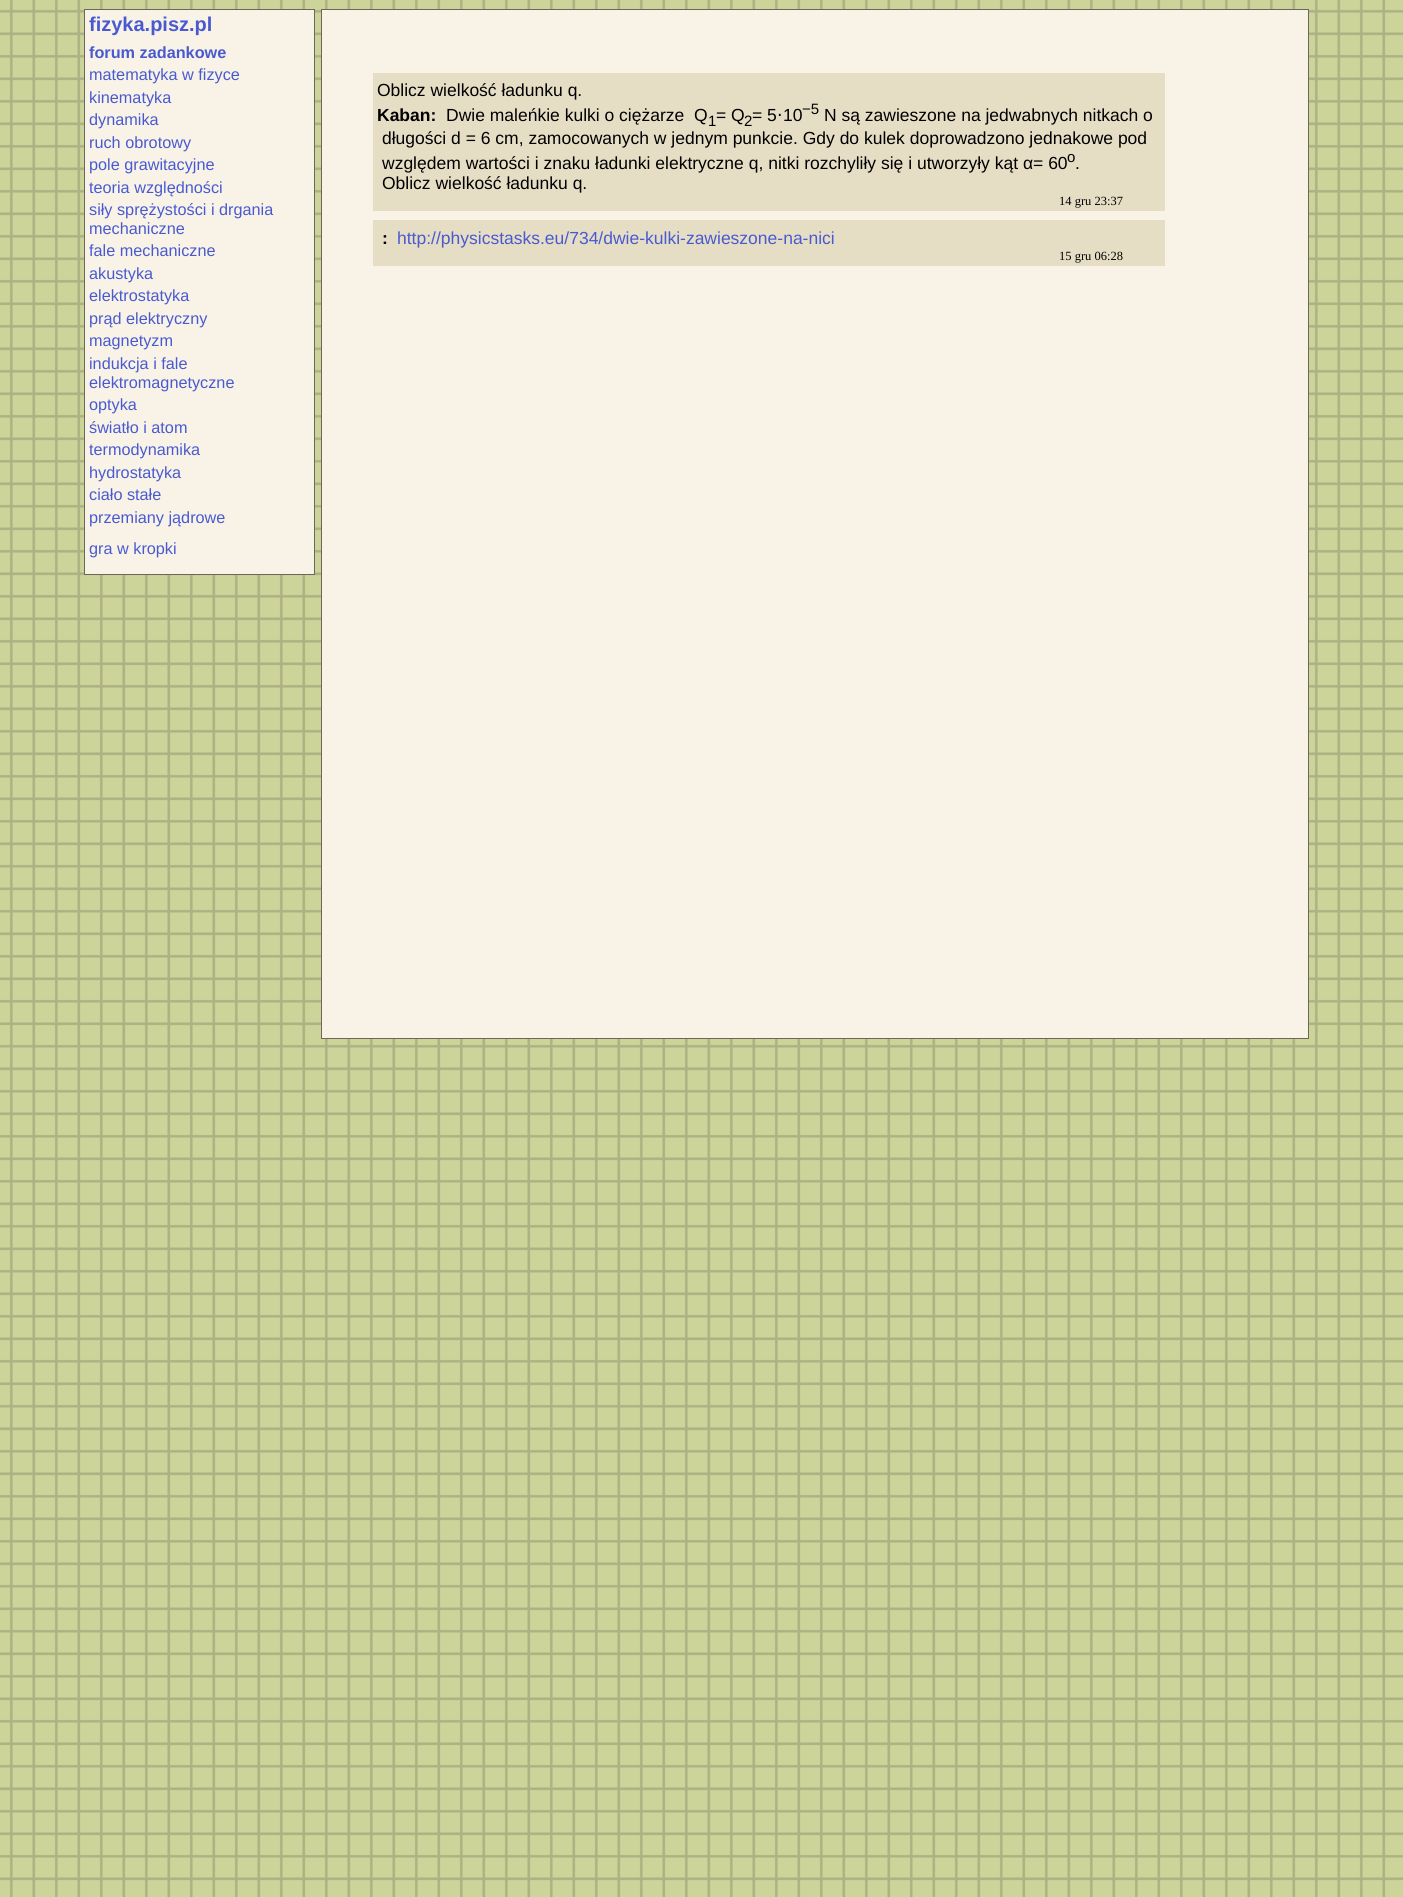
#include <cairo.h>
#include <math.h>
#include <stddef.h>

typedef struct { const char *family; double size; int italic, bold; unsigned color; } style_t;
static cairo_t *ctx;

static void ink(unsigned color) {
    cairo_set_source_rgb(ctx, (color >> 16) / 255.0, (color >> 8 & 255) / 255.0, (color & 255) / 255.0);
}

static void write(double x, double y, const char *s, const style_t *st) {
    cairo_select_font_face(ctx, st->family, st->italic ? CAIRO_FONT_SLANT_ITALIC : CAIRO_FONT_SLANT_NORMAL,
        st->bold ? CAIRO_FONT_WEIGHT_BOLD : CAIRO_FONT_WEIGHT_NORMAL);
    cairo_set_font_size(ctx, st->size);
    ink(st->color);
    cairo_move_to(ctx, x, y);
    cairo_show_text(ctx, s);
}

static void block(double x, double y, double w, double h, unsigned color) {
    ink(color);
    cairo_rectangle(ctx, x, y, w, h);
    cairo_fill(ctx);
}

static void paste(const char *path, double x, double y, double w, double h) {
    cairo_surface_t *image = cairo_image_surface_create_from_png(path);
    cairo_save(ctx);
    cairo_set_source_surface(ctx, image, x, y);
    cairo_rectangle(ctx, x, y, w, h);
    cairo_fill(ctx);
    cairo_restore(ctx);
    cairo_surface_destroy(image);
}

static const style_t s1 = {"Liberation Sans", 20, 0, 1, 0x495ad1};
static const style_t s2 = {"Liberation Sans", 16.25, 0, 1, 0x495ad1};
static const style_t s3 = {"Liberation Sans", 16.25, 0, 0, 0x495ad1};
static const style_t s4 = {"Liberation Sans", 17.5, 0, 0, 0x000000};
static const style_t s5 = {"Liberation Sans", 17.5, 0, 1, 0x000000};
static const style_t s6 = {"Liberation Sans", 15, 0, 0, 0x000000};
static const style_t s7 = {"DejaVu Sans", 17.5, 0, 0, 0x000000};
static const style_t s8 = {"Liberation Serif", 12.5, 0, 0, 0x000000};
static const style_t s9 = {"Liberation Sans", 17.5, 0, 0, 0x495ad1};

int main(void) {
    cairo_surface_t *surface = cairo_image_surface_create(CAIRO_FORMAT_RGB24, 1403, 1897);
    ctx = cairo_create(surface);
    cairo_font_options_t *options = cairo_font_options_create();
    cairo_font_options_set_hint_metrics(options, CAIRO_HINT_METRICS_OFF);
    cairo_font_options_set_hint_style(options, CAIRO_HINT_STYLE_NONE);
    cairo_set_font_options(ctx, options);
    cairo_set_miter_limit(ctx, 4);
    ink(0xffffff);
    cairo_paint(ctx);
    paste("pic1.png", 0, 0, 1403, 1897);
    ink(0xf8f3e6);
    cairo_rectangle(ctx, 84.5, 9.5, 230, 565);
    cairo_fill_preserve(ctx);
    ink(0x6b675b);
    cairo_set_line_width(ctx, 1);
    cairo_stroke(ctx);
    write(89, 31, "fizyka.pisz.pl", &s1);
    write(89, 58, "forum zadankowe", &s2);
    write(89, 80, "matematyka w fizyce", &s3);
    write(89, 103, "kinematyka", &s3);
    write(89, 125, "dynamika", &s3);
    write(89, 148, "ruch obrotowy", &s3);
    write(89, 170, "pole grawitacyjne", &s3);
    write(89, 193, "teoria względności", &s3);
    write(89, 215, "siły sprężystości i drgania", &s3);
    write(89, 234, "mechaniczne", &s3);
    write(89, 256, "fale mechaniczne", &s3);
    write(89, 279, "akustyka", &s3);
    write(89, 301, "elektrostatyka", &s3);
    write(89, 324, "prąd elektryczny", &s3);
    write(89, 346, "magnetyzm", &s3);
    write(89, 369, "indukcja i fale", &s3);
    write(89, 388, "elektromagnetyczne", &s3);
    write(89, 410, "optyka", &s3);
    write(89, 433, "światło i atom", &s3);
    write(89, 455, "termodynamika", &s3);
    write(89, 478, "hydrostatyka", &s3);
    write(89, 500, "ciało stałe", &s3);
    write(89, 523, "przemiany jądrowe", &s3);
    write(89, 554, "gra w kropki", &s3);
    ink(0xf8f3e6);
    cairo_rectangle(ctx, 321.5, 9.5, 987, 1029);
    cairo_fill_preserve(ctx);
    ink(0x6b675b);
    cairo_stroke(ctx);
    block(373, 73, 792, 138, 0xe6ddc5);
    write(377, 96, "Oblicz wielkość ładunku q.", &s4);
    write(377, 121, "Kaban:", &s5);
    write(446, 121, "Dwie maleńkie kulki o ciężarze  Q", &s4);
    write(708, 126, "1", &s6);
    write(716, 121, "= Q", &s4);
    write(744, 126, "2", &s6);
    write(752, 121, "= 5", &s4);
    write(777, 121, "⋅", &s7);
    write(783, 121, "10", &s4);
    write(802, 114, "−5", &s6);
    write(824, 121, "N są zawieszone na jedwabnych nitkach o", &s4);
    write(382, 144, "długości d = 6 cm, zamocowanych w jednym punkcie. Gdy do kulek doprowadzono jednakowe pod", &s4);
    write(382, 169, "względem wartości i znaku ładunki elektryczne q, nitki rozchyliły się i utworzyły kąt α= 60", &s4);
    write(1067, 162, "o", &s6);
    write(1075, 169, ".", &s4);
    write(382, 189, "Oblicz wielkość ładunku q.", &s4);
    write(1059, 205, "14 gru 23:37", &s8);
    block(373, 220, 792, 46, 0xe6ddc5);
    write(382, 244, ":", &s5);
    write(397, 244, "http://physicstasks.eu/734/dwie-kulki-zawieszone-na-nici", &s9);
    write(1059, 260, "15 gru 06:28", &s8);
    cairo_surface_write_to_png(surface, "screenshot.png");
    cairo_font_options_destroy(options);
    cairo_destroy(ctx);
    cairo_surface_destroy(surface);
    return 0;
}
